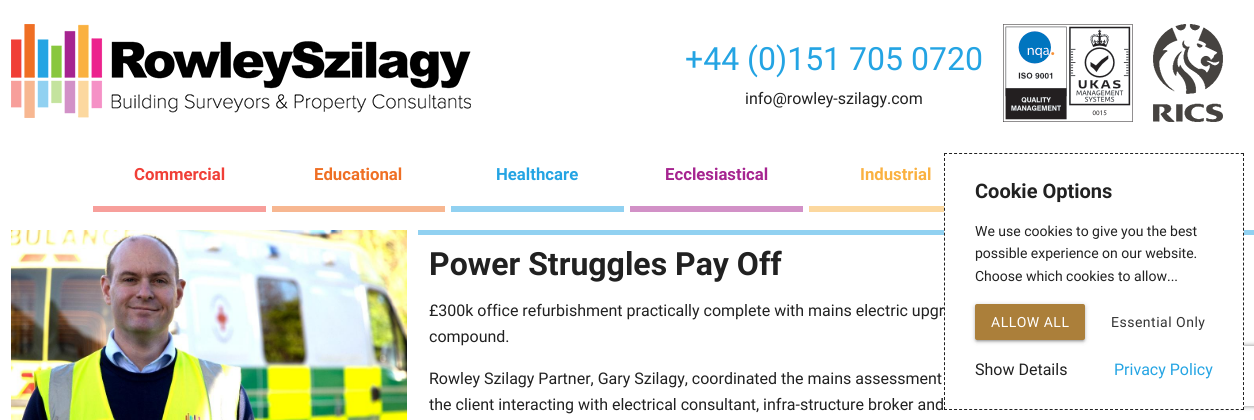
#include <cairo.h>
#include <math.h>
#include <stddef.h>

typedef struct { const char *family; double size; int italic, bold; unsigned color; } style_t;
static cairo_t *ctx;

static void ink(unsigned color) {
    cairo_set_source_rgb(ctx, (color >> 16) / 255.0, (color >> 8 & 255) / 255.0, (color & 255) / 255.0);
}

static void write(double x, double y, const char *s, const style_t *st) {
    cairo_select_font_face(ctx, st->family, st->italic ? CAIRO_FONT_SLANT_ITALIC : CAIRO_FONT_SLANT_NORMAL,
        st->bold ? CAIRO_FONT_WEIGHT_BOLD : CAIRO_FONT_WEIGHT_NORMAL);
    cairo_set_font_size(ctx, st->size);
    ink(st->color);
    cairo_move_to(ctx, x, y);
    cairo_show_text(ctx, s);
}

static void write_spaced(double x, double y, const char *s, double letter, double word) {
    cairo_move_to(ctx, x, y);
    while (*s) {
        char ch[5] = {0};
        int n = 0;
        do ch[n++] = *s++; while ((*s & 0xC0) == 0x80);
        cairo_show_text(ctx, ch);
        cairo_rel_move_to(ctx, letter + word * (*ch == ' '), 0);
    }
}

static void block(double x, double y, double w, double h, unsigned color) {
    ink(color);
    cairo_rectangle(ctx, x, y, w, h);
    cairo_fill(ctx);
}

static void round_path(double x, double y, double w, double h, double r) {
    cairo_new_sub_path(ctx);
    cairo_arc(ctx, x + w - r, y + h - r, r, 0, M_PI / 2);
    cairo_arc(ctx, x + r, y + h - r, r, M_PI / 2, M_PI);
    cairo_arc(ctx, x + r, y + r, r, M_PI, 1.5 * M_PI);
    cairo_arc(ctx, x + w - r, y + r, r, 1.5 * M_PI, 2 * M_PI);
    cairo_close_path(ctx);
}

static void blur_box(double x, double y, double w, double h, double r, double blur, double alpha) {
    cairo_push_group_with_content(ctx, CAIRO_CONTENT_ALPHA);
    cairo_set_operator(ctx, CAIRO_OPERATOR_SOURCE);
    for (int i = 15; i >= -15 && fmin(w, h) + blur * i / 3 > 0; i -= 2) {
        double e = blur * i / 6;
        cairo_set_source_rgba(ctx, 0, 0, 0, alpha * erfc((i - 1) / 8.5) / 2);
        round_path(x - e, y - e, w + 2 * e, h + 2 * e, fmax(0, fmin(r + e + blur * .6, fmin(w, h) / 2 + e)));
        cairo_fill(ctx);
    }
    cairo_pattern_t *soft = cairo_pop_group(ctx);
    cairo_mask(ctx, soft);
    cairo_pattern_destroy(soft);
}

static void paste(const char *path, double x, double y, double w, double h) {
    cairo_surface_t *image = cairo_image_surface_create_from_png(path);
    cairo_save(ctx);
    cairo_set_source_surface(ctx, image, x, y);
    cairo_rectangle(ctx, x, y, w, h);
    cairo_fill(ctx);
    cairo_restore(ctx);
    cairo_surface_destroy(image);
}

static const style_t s1 = {"Roboto", 32, 0, 0, 0x24a4e3};
static const style_t s2 = {"Roboto", 16, 0, 0, 0x212121};
static const style_t s3 = {"Roboto", 16.75, 0, 1, 0xf03f37};
static const style_t s4 = {"Roboto", 16.75, 0, 1, 0xef6f24};
static const style_t s5 = {"Roboto", 16.75, 0, 1, 0x24a4e3};
static const style_t s6 = {"Roboto", 16.75, 0, 1, 0xa62490};
static const style_t s7 = {"Roboto", 16.75, 0, 1, 0xfab140};
static const style_t s8 = {"Roboto", 32, 0, 1, 0x212121};
static const style_t s9 = {"Roboto", 20, 0, 1, 0x212121};
static const style_t s10 = {"Roboto", 14, 0, 0, 0x212121};
static const style_t s11 = {"Roboto", 16, 0, 0, 0x24a4e3};

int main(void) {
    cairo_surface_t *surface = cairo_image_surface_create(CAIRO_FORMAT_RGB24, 1254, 420);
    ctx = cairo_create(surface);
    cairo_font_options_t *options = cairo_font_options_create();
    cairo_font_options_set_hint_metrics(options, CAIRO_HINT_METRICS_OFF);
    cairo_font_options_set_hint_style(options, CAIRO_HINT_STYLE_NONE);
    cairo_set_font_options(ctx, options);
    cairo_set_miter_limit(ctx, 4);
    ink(0xffffff);
    cairo_paint(ctx);
    paste("pic1.png", 11, 24, 460, 94);
    write(685, 70, "+44 (0)151 705 0720", &s1);
    write(745, 104, "info@rowley-szilagy.com", &s2);
    paste("pic2.png", 1003, 24, 130, 98);
    paste("pic3.png", 1153, 24, 70, 98);
    block(93, 206, 173, 6, 0xf79f9b);
    write(134, 180, "Commercial", &s3);
    block(272, 206, 173, 6, 0xf7b791);
    write(314, 180, "Educational", &s4);
    block(451, 206, 173, 6, 0x91d1f1);
    write(496, 180, "Healthcare", &s5);
    block(630, 206, 173, 6, 0xd291c7);
    write(665, 180, "Ecclesiastical", &s6);
    block(809, 206, 135, 6, 0xfcd89f);
    write(860, 180, "Industrial", &s7);
    paste("pic4.png", 11, 230, 396, 190);
    block(418, 230, 836, 5, 0x91d1f1);
    write(429, 275, "Power Struggles Pay Off", &s8);
    write(429, 316, "£300k office refurbishment practically complete with mains electric upgr", &s2);
    write(429, 342, "compound.", &s2);
    write(429, 384, "Rowley Szilagy Partner, Gary Szilagy, coordinated the mains assessment", &s2);
    write(429, 410, "the client interacting with electrical consultant, infra-structure broker and", &s2);
    cairo_save(ctx);
    cairo_set_fill_rule(ctx, CAIRO_FILL_RULE_EVEN_ODD);
    cairo_new_path(ctx);
    cairo_move_to(ctx, 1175, 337);
    cairo_line_to(ctx, 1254, 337);
    cairo_line_to(ctx, 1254, 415);
    cairo_line_to(ctx, 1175, 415);
    cairo_close_path(ctx);
    cairo_move_to(ctx, 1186, 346);
    cairo_line_to(ctx, 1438, 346);
    cairo_curve_to(ctx, 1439, 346, 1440, 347, 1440, 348);
    cairo_line_to(ctx, 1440, 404);
    cairo_curve_to(ctx, 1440, 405, 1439, 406, 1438, 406);
    cairo_line_to(ctx, 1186, 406);
    cairo_curve_to(ctx, 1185, 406, 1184, 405, 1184, 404);
    cairo_line_to(ctx, 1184, 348);
    cairo_curve_to(ctx, 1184, 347, 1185, 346, 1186, 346);
    cairo_close_path(ctx);
    cairo_clip(ctx);
    ink(0x808080);
    blur_box(1184, 346, 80, 60, 2, 2.5, 1);
    cairo_restore(ctx);
    block(944, 230, 300, 180, 0xffffff);
    cairo_new_path(ctx);
    cairo_move_to(ctx, 944, 153.5);
    cairo_line_to(ctx, 1244, 153.5);
    ink(0x212121);
    cairo_set_line_width(ctx, 1);
    cairo_set_dash(ctx, (double[]){3, 2.03}, 2, 0);
    cairo_stroke(ctx);
    cairo_new_path(ctx);
    cairo_move_to(ctx, 1243.5, 153);
    cairo_line_to(ctx, 1243.5, 410);
    cairo_set_dash(ctx, (double[]){3, 1.98}, 2, 0);
    cairo_stroke(ctx);
    cairo_new_path(ctx);
    cairo_move_to(ctx, 944, 409.5);
    cairo_line_to(ctx, 1244, 409.5);
    cairo_set_dash(ctx, (double[]){3, 2.03}, 2, 0);
    cairo_stroke(ctx);
    cairo_new_path(ctx);
    cairo_move_to(ctx, 944.5, 153);
    cairo_line_to(ctx, 944.5, 410);
    cairo_set_dash(ctx, (double[]){3, 1.98}, 2, 0);
    cairo_stroke(ctx);
    write(975, 198, "Cookie Options", &s9);
    write(975, 236, "We use cookies to give you the best", &s10);
    write(975, 258, "possible experience on our website.", &s10);
    write(975, 281, "Choose which cookies to allow...", &s10);
    ink(0x000000);
    blur_box(975, 305, 110, 36, 2, 2.5, 0.2);
    blur_box(977, 309, 106, 32, 0, 0.5, 0.12);
    blur_box(975, 306, 110, 36, 2, 1, 0.14);
    ink(0xab7f3a);
    round_path(975, 304, 110, 36, 2);
    cairo_fill(ctx);
    ink(0xffffff);
    write_spaced(991, 327, "ALLOW ALL", 0.5, 0);
    ink(0x343434);
    write_spaced(1111, 327, "Essential Only", 0.5, 0);
    write(975, 375, "Show Details", &s2);
    write(1114, 375, "Privacy Policy", &s11);
    cairo_surface_write_to_png(surface, "screenshot.png");
    cairo_font_options_destroy(options);
    cairo_destroy(ctx);
    cairo_surface_destroy(surface);
    return 0;
}
